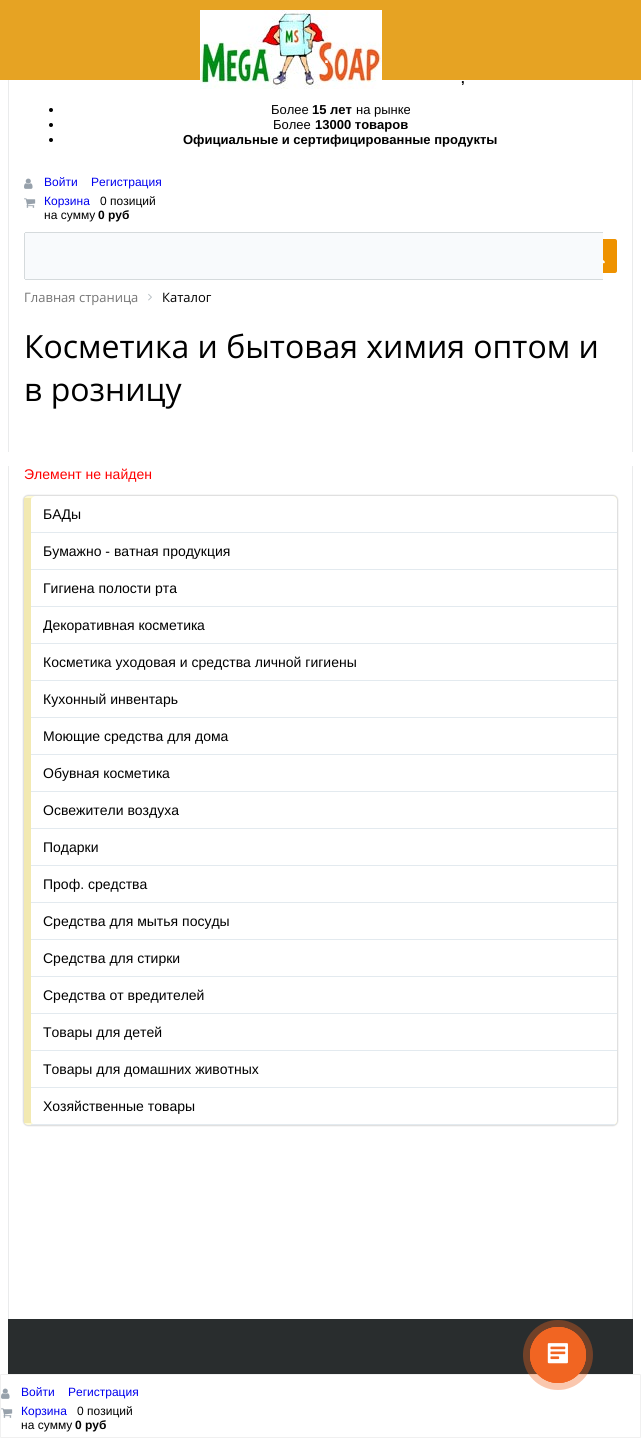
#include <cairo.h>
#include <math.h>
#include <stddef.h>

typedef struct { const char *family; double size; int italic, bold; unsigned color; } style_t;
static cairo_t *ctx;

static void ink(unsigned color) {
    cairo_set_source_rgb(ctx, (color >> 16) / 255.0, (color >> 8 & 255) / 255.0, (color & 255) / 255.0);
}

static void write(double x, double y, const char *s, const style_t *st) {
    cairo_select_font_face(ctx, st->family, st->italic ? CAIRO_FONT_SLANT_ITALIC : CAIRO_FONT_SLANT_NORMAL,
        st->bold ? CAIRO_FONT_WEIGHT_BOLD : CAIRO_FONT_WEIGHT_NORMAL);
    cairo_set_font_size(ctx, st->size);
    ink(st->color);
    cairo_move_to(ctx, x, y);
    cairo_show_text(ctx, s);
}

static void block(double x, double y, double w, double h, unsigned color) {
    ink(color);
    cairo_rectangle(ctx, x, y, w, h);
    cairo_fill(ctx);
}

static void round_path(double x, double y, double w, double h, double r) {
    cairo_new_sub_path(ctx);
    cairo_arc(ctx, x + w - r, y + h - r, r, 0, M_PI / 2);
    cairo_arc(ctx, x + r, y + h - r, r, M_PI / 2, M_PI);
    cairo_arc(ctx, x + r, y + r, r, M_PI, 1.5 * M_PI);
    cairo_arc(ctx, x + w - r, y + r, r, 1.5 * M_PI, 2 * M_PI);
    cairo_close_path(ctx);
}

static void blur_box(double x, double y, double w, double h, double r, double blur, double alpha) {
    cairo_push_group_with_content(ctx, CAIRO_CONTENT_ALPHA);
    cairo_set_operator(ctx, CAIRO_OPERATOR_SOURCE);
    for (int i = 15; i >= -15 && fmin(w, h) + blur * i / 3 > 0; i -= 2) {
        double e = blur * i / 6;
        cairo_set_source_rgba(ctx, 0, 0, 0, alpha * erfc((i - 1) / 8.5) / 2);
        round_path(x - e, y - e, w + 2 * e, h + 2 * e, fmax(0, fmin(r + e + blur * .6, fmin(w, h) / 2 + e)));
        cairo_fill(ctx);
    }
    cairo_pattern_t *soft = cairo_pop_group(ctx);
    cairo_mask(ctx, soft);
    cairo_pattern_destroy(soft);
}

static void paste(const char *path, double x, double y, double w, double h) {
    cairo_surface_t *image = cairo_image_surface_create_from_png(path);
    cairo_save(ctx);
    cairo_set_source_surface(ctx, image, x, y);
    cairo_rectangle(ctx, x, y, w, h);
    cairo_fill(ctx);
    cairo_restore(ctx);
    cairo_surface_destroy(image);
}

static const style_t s1 = {"Liberation Sans", 18, 0, 1, 0xffffff};
static const style_t s2 = {"Liberation Sans", 13, 0, 1, 0x000000};
static const style_t s3 = {"Liberation Sans", 13, 0, 0, 0x000000};
static const style_t s4 = {"Liberation Sans", 12, 0, 0, 0x0000ee};
static const style_t s5 = {"Liberation Sans", 12, 0, 0, 0x000000};
static const style_t s6 = {"Liberation Sans", 12, 0, 1, 0x000000};
static const style_t s7 = {"Open Sans", 13, 0, 0, 0x757575};
static const style_t s8 = {"Open Sans", 13, 0, 0, 0x000000};
static const style_t s9 = {"Open Sans", 32, 0, 0, 0x000000};
static const style_t s10 = {"Liberation Sans", 14, 0, 0, 0xff0000};
static const style_t s11 = {"Liberation Sans", 14, 0, 0, 0x000000};

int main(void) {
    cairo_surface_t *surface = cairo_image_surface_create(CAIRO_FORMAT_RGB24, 641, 1438);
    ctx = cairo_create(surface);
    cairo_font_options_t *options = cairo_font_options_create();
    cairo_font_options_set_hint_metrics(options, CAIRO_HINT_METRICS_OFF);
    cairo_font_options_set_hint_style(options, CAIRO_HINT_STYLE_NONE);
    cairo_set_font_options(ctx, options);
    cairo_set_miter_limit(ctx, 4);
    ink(0xffffff);
    cairo_paint(ctx);
    block(632, 80, 1, 372, 0xeaebec);
    block(8, 80, 1, 372, 0xeaebec);
    block(0, 0, 641, 80, 0xe6a323);
    paste("pic1.png", 200, 10, 182, 79);
    write(324, 63, ".", &s1);
    write(461, 83, ",", &s2);
    cairo_new_path(ctx);
    cairo_arc(ctx, 51, 110, 2, 0, 2 * M_PI);
    cairo_fill(ctx);
    write(271, 114, "Более", &s3);
    write(312, 114, "15 лет", &s2);
    write(356, 114, "на рынке", &s3);
    cairo_new_path(ctx);
    cairo_arc(ctx, 51, 125, 2, 0, 2 * M_PI);
    cairo_fill(ctx);
    write(273, 129, "Более", &s3);
    write(315, 129, "13000 товаров", &s2);
    cairo_new_path(ctx);
    cairo_arc(ctx, 51, 140, 2, 0, 2 * M_PI);
    cairo_fill(ctx);
    write(183, 144, "Официальные и сертифицированные продукты", &s2);
    paste("pic2.png", 24, 178, 9, 11);
    write(44, 186, "Войти", &s4);
    write(91, 186, "Регистрация", &s4);
    paste("pic3.png", 24, 198, 12, 10);
    write(44, 205, "Корзина", &s4);
    write(100, 205, "0 позиций", &s5);
    write(44, 219, "на сумму", &s5);
    write(98, 219, "0 руб", &s6);
    ink(0xee9200);
    cairo_new_path(ctx);
    cairo_move_to(ctx, 578, 239);
    cairo_line_to(ctx, 615, 239);
    cairo_curve_to(ctx, 616, 239, 617, 240, 617, 241);
    cairo_line_to(ctx, 617, 271);
    cairo_curve_to(ctx, 617, 272, 616, 273, 615, 273);
    cairo_line_to(ctx, 578, 273);
    cairo_close_path(ctx);
    cairo_fill(ctx);
    ink(0xf8fafc);
    cairo_new_path(ctx);
    cairo_move_to(ctx, 26, 232);
    cairo_line_to(ctx, 603, 232);
    cairo_line_to(ctx, 603, 280);
    cairo_line_to(ctx, 26, 280);
    cairo_curve_to(ctx, 25, 280, 24, 279, 24, 278);
    cairo_line_to(ctx, 24, 234);
    cairo_curve_to(ctx, 24, 233, 25, 232, 26, 232);
    cairo_close_path(ctx);
    cairo_fill(ctx);
    block(25, 232, 578, 1, 0xd5dadc);
    block(25, 279, 578, 1, 0xd5dadc);
    block(24, 233, 1, 46, 0xd5dadc);
    paste("pic4.png", 603, 260, 2, 4);
    write(24, 302, "Главная страница", &s7);
    paste("pic5.png", 148, 293, 4, 8);
    write(162, 302, "Каталог", &s8);
    write(24, 358, "Косметика и бытовая химия оптом и", &s9);
    write(24, 401, "в розницу", &s9);
    block(632, 466, 1, 853, 0xeaebec);
    block(8, 466, 1, 853, 0xeaebec);
    write(24, 479, "Элемент не найден", &s10);
    ink(0xdcdcdc);
    blur_box(23, 495, 595, 631, 5, 0.5, 1);
    ink(0xfefad5);
    round_path(24, 496, 593, 629, 4);
    cairo_fill(ctx);
    block(24, 498, 7, 625, 0xf2e9b2);
    ink(0xffffff);
    round_path(31, 496, 586, 629, 5);
    cairo_fill(ctx);
    block(31, 532, 586, 1, 0xe3eaef);
    write(43, 519, "БАДы", &s11);
    block(31, 569, 586, 1, 0xe3eaef);
    write(43, 556, "Бумажно - ватная продукция", &s11);
    block(31, 606, 586, 1, 0xe3eaef);
    write(43, 593, "Гигиена полости рта", &s11);
    block(31, 643, 586, 1, 0xe3eaef);
    write(43, 630, "Декоративная косметика", &s11);
    block(31, 680, 586, 1, 0xe3eaef);
    write(43, 667, "Косметика уходовая и средства личной гигиены", &s11);
    block(31, 717, 586, 1, 0xe3eaef);
    write(43, 704, "Кухонный инвентарь", &s11);
    block(31, 754, 586, 1, 0xe3eaef);
    write(43, 741, "Моющие средства для дома", &s11);
    block(31, 791, 586, 1, 0xe3eaef);
    write(43, 778, "Обувная косметика", &s11);
    block(31, 828, 586, 1, 0xe3eaef);
    write(43, 815, "Освежители воздуха", &s11);
    block(31, 865, 586, 1, 0xe3eaef);
    write(43, 852, "Подарки", &s11);
    block(31, 902, 586, 1, 0xe3eaef);
    write(43, 889, "Проф. средства", &s11);
    block(31, 939, 586, 1, 0xe3eaef);
    write(43, 926, "Средства для мытья посуды", &s11);
    block(31, 976, 586, 1, 0xe3eaef);
    write(43, 963, "Средства для стирки", &s11);
    block(31, 1013, 586, 1, 0xe3eaef);
    write(43, 1000, "Средства от вредителей", &s11);
    block(31, 1050, 586, 1, 0xe3eaef);
    write(43, 1037, "Товары для детей", &s11);
    block(31, 1087, 586, 1, 0xe3eaef);
    write(43, 1074, "Товары для домашних животных", &s11);
    block(31, 1124, 584, 1, 0xe3eaef);
    write(43, 1111, "Хозяйственные товары", &s11);
    block(8, 1319, 625, 55, 0x292d2e);
    round_path(0.5, 1374.5, 640, 63, 0.5);
    ink(0xf0f0f0);
    cairo_set_line_width(ctx, 1);
    cairo_stroke(ctx);
    paste("pic2.png", 1, 1388, 9, 11);
    write(21, 1396, "Войти", &s4);
    write(68, 1396, "Регистрация", &s4);
    paste("pic3.png", 1, 1408, 12, 10);
    write(21, 1415, "Корзина", &s4);
    write(77, 1415, "0 позиций", &s5);
    write(21, 1429, "на сумму", &s5);
    write(75, 1429, "0 руб", &s6);
    cairo_set_source_rgba(ctx, 0.945, 0.396, 0.133, 0.2);
    cairo_new_path(ctx);
    cairo_arc(ctx, 558, 1355, 35, 0, 2 * M_PI);
    cairo_fill(ctx);
    cairo_arc(ctx, 558, 1355, 27.6, 0, 2 * M_PI);
    ink(0xf16522);
    cairo_set_line_width(ctx, 0.8);
    cairo_stroke(ctx);
    cairo_set_source_rgba(ctx, 0.945, 0.396, 0.133, 0.2);
    cairo_arc(ctx, 558, 1355, 35, 0, 2 * M_PI);
    cairo_fill(ctx);
    cairo_arc(ctx, 558, 1355, 27.6, 0, 2 * M_PI);
    ink(0xf16522);
    cairo_stroke(ctx);
    cairo_arc(ctx, 558, 1355, 28, 0, 2 * M_PI);
    cairo_fill(ctx);
    paste("pic6.png", 547, 1343, 21, 21);
    cairo_surface_write_to_png(surface, "screenshot.png");
    cairo_font_options_destroy(options);
    cairo_destroy(ctx);
    cairo_surface_destroy(surface);
    return 0;
}
